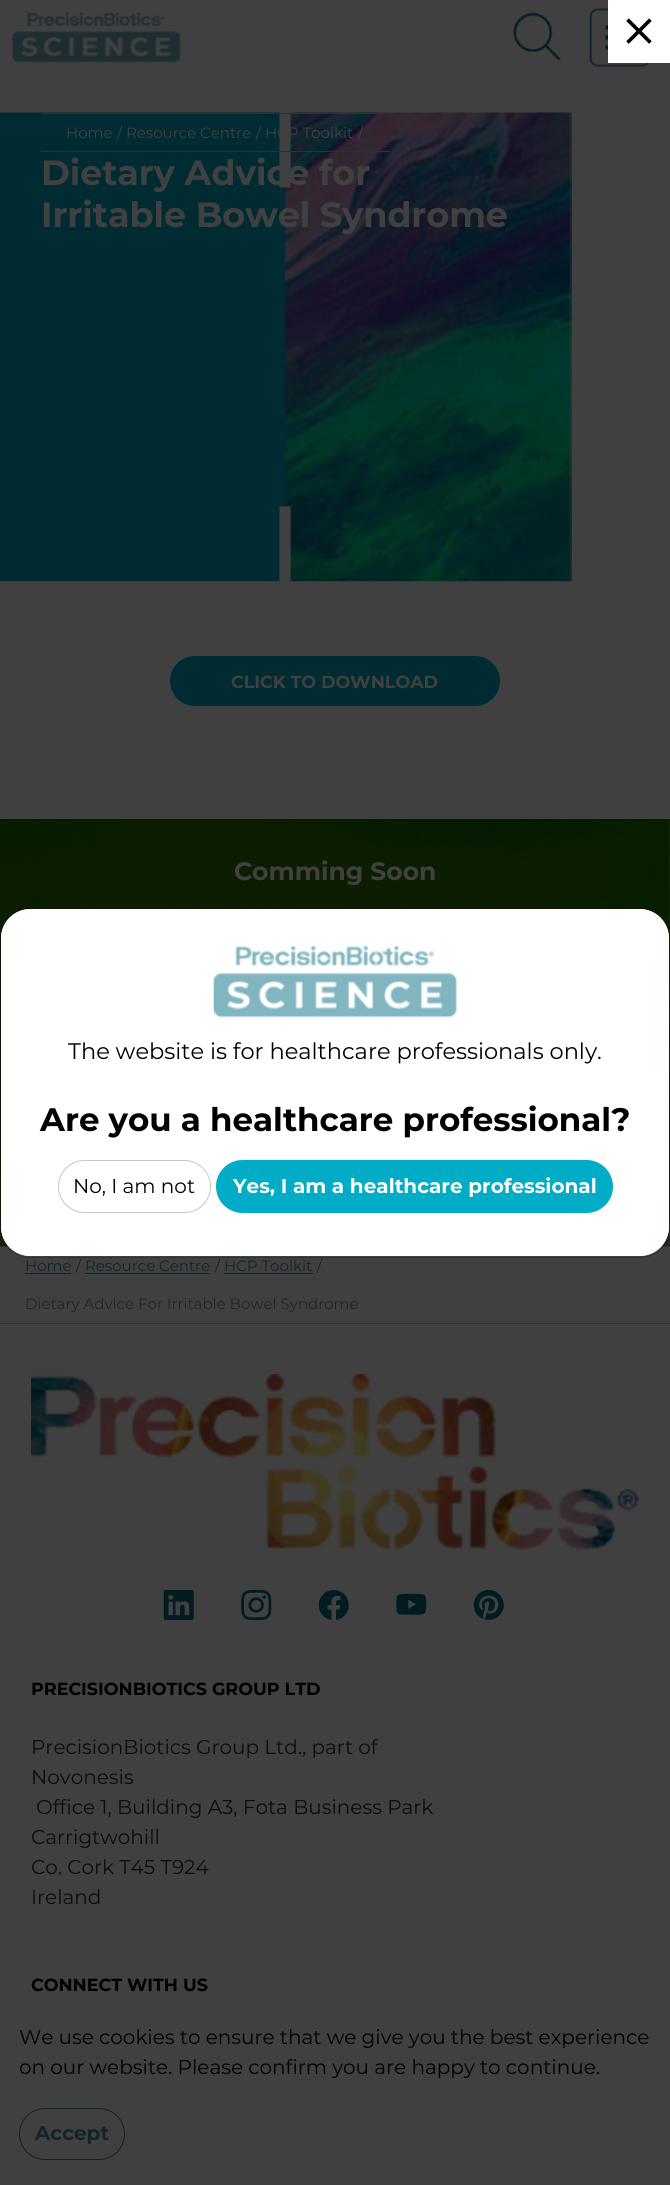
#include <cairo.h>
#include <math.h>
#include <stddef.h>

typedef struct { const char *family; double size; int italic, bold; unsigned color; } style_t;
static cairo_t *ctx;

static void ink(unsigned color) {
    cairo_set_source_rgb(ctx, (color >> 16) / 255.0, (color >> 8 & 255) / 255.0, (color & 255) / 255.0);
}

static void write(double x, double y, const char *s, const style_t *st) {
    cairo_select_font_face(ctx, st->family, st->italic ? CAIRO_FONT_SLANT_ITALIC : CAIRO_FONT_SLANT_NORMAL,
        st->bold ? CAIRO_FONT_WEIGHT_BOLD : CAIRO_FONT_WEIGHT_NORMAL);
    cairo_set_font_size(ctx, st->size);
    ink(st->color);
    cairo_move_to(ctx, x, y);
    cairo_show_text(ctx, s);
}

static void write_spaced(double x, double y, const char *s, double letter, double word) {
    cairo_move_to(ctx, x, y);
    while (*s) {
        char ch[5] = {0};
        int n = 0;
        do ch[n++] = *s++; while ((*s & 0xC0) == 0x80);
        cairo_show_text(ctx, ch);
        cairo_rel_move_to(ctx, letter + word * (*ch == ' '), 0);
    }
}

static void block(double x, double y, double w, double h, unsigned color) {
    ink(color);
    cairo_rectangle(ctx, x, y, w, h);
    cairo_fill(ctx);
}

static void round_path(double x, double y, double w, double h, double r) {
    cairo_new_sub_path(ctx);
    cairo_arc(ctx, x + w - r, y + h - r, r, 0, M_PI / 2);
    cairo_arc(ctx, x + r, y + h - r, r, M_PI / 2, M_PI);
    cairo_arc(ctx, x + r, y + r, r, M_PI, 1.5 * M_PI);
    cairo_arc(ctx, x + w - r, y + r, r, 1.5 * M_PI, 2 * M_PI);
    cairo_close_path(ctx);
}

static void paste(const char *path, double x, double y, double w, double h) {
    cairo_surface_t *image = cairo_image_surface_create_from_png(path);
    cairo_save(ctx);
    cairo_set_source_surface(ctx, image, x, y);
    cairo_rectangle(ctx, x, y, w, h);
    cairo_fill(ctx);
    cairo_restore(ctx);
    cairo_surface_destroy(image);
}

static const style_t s1 = {"Montserrat", 15, 0, 0, 0x404040};
static const style_t s2 = {"Montserrat", 17.5, 0, 1, 0x404040};
static const style_t s3 = {"Montserrat", 25, 0, 1, 0x404040};
static const style_t s4 = {"Montserrat", 15, 0, 0, 0x112428};
static const style_t s5 = {"Montserrat", 15, 0, 0, 0x242424};
static const style_t s6 = {"Montserrat", 17.5, 0, 1, 0x000000};
static const style_t s7 = {"Montserrat", 20, 0, 0, 0x0d0d0d};
static const style_t s8 = {"Montserrat", 22.5, 0, 0, 0x000000};
static const style_t s9 = {"Montserrat", 32.5, 0, 1, 0x000000};
static const style_t s10 = {"Montserrat", 20, 0, 0, 0x000000};
static const style_t s11 = {"Montserrat", 20, 0, 1, 0xffffff};
static const style_t s12 = {"Montserrat", 20, 0, 1, 0x112428};

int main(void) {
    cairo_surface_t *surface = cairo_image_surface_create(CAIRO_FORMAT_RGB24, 670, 2185);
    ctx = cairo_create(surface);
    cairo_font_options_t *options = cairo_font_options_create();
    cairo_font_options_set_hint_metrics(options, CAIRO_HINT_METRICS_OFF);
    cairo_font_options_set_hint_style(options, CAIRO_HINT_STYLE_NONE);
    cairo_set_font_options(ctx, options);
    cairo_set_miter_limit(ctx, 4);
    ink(0x404040);
    cairo_paint(ctx);
    paste("pic1.png", 12, 12, 169, 51);
    paste("pic2.png", 513, 12, 48, 49);
    paste("pic3.png", 589, 8, 61, 59);
    paste("pic4.png", 0, 112, 572, 470);
    block(41, 113, 350, 1, 0x313131);
    block(41, 151, 350, 1, 0x313131);
    write(66, 138, "Home", &s1);
    write(117, 138, "/ Resource Centre", &s1);
    write(256, 138, "/ HCP Toolkit", &s1);
    write(358, 138, "/", &s1);
    cairo_select_font_face(ctx, "Montserrat", CAIRO_FONT_SLANT_NORMAL, CAIRO_FONT_WEIGHT_BOLD);
    cairo_set_font_size(ctx, 35);
    write_spaced(41, 185, "Dietary Advice for", -0.1, 0);
    write_spaced(41, 227, "Irritable Bowel Syndrome", -0.1, 0);
    ink(0x002b32);
    round_path(170, 656, 330, 50, 25);
    cairo_fill(ctx);
    write(231, 688, "CLICK TO DOWNLOAD", &s2);
    paste("pic5.png", 0, 819, 670, 427);
    write(234, 880, "Comming Soon", &s3);
    block(0, 1246, 670, 1, 0x313131);
    block(0, 1323, 670, 1, 0x313131);
    write(25, 1271, "Home", &s4);
    block(25, 1273, 46, 1, 0x112428);
    write(76, 1271, "/ Resource Centre", &s4);
    write(215, 1271, "/ HCP Toolkit", &s4);
    block(85, 1273, 125, 1, 0x112428);
    write(317, 1271, "/", &s4);
    block(224, 1273, 89, 1, 0x112428);
    write(25, 1309, "Dietary Advice For Irritable Bowel Syndrome", &s5);
    paste("pic6.png", 31, 1374, 608, 176);
    paste("pic7.png", 163, 1590, 31, 30);
    paste("pic8.png", 241, 1590, 31, 30);
    paste("pic9.png", 318, 1590, 31, 30);
    paste("pic10.png", 396, 1593, 31, 22);
    paste("pic11.png", 473, 1590, 31, 30);
    write(31, 1695, "PRECISIONBIOTICS GROUP LTD", &s6);
    write(31, 1754, "PrecisionBiotics Group Ltd., part of", &s7);
    write(31, 1784, "Novonesis", &s7);
    write(36, 1814, "Office 1, Building A3, Fota Business Park", &s7);
    write(31, 1844, "Carrigtwohill", &s7);
    write(31, 1874, "Co. Cork T45 T924", &s7);
    write(31, 1904, "Ireland", &s7);
    write(31, 1991, "CONNECT WITH US", &s6);
    block(608, 0, 62, 63, 0xffffff);
    paste("pic12.png", 626, 18, 26, 26);
    round_path(1, 909, 668, 347, 29);
    cairo_fill(ctx);
    round_path(0.5, 908.5, 669, 349, 29.5);
    cairo_set_source_rgba(ctx, 0, 0, 0, 0.2);
    cairo_set_line_width(ctx, 1);
    cairo_stroke(ctx);
    ink(0xffffff);
    round_path(1, 909, 668, 127, 30);
    cairo_fill(ctx);
    paste("pic13.png", 213, 946, 244, 72);
    round_path(1, 1036, 668, 220, 30);
    cairo_fill(ctx);
    write(68, 1059, "The website is for healthcare professionals only.", &s8);
    write(40, 1131, "Are you a healthcare professional?", &s9);
    round_path(58.5, 1160.5, 152, 52, 26);
    ink(0xc5c5c5);
    cairo_stroke(ctx);
    write(73, 1193, "No, I am not", &s10);
    ink(0x00acc6);
    round_path(216, 1160, 397, 53, 26.5);
    cairo_fill(ctx);
    write(233, 1193, "Yes, I am a healthcare professional", &s11);
    write(19, 2044, "We use cookies to ensure that we give you the best experience", &s10);
    write(19, 2074, "on our website. Please confirm you are happy to continue.", &s10);
    round_path(19.5, 2108.5, 105, 51, 25.5);
    ink(0x132024);
    cairo_stroke(ctx);
    write(35, 2140, "Accept", &s12);
    cairo_surface_write_to_png(surface, "screenshot.png");
    cairo_font_options_destroy(options);
    cairo_destroy(ctx);
    cairo_surface_destroy(surface);
    return 0;
}
